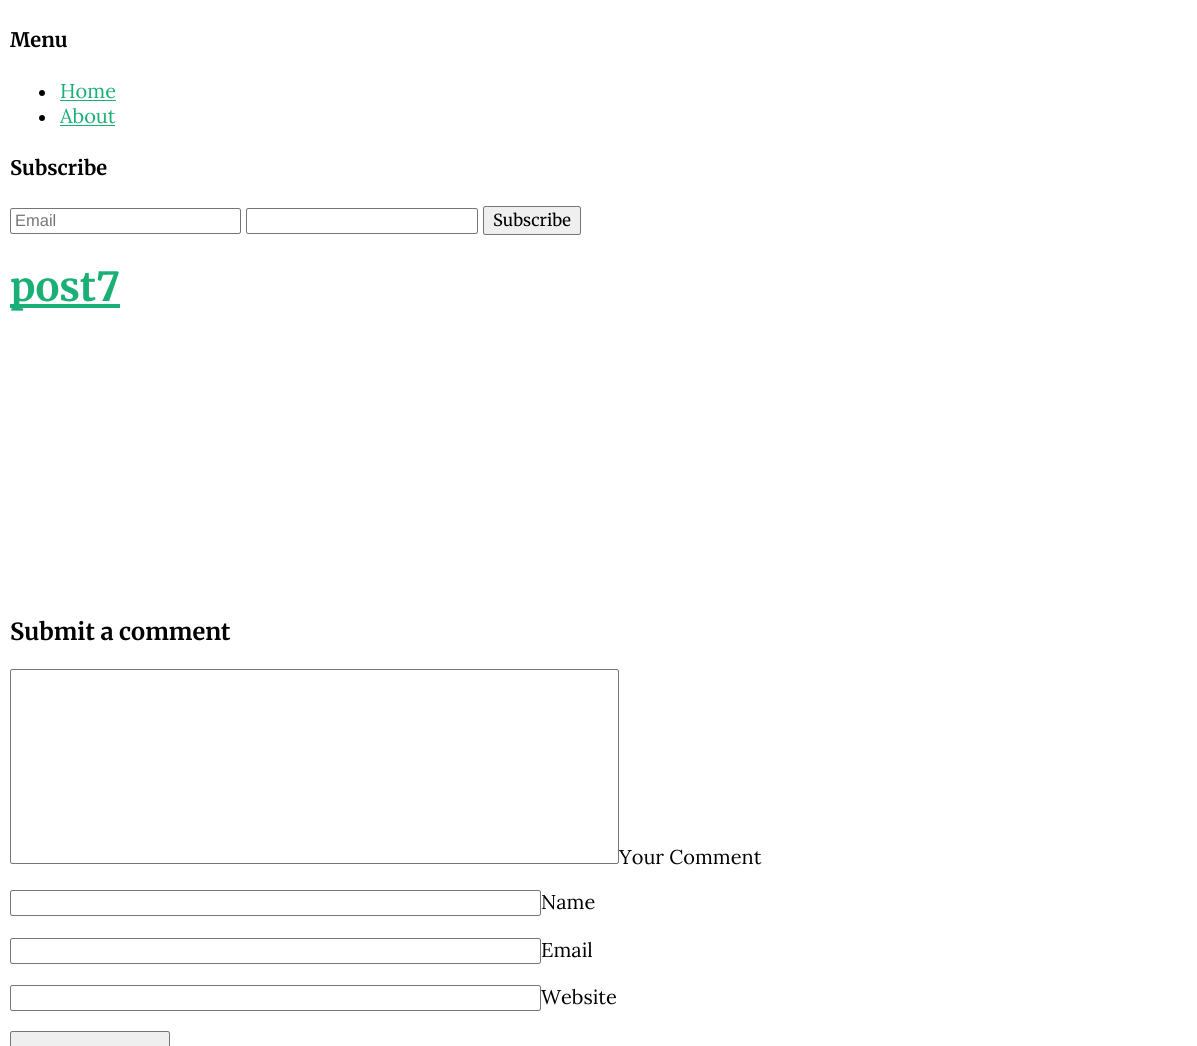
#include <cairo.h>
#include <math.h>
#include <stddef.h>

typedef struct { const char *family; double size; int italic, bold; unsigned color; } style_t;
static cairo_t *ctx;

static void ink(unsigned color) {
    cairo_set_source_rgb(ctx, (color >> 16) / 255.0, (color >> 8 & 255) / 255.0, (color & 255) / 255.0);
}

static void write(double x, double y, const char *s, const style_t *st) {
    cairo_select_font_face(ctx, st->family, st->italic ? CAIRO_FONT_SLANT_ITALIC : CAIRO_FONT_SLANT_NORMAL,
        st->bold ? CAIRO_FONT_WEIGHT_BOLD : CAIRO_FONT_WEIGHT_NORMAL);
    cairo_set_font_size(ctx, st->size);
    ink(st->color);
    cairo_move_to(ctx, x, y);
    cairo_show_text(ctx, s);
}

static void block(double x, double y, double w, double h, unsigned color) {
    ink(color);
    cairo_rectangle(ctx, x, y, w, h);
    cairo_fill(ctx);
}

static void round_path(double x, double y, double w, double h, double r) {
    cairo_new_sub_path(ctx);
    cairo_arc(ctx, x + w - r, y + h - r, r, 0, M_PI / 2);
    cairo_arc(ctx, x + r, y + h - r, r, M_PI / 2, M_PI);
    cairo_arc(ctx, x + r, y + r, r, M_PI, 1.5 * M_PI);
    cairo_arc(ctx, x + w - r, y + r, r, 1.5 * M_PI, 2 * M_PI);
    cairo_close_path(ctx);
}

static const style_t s1 = {"Merriweather", 20, 0, 1, 0x000000};
static const style_t s2 = {"Lora", 20, 0, 0, 0x1aaf74};
static const style_t s3 = {"Liberation Sans", 16.5, 0, 0, 0x757575};
static const style_t s4 = {"Merriweather", 16.5, 0, 0, 0x000000};
static const style_t s5 = {"Merriweather", 40, 0, 1, 0x1aaf74};
static const style_t s6 = {"Merriweather", 23.5, 0, 1, 0x000000};
static const style_t s7 = {"Lora", 20, 0, 0, 0x000000};

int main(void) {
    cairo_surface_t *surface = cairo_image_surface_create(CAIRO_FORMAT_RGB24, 1197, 1046);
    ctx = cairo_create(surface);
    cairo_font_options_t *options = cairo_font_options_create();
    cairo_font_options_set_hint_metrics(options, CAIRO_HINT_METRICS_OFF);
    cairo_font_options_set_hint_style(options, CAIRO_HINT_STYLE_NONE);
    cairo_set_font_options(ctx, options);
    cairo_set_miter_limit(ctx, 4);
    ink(0xffffff);
    cairo_paint(ctx);
    write(10, 47, "Menu", &s1);
    cairo_new_path(ctx);
    cairo_arc(ctx, 42, 93, 3, 0, 2 * M_PI);
    cairo_fill(ctx);
    write(60, 98, "Home", &s2);
    block(60, 100, 56, 1, 0x1aaf74);
    ink(0x000000);
    cairo_new_path(ctx);
    cairo_arc(ctx, 42, 118, 3, 0, 2 * M_PI);
    cairo_fill(ctx);
    write(60, 123, "About", &s2);
    block(60, 125, 55, 1, 0x1aaf74);
    write(10, 175, "Subscribe", &s1);
    round_path(10.5, 208.5, 230, 25, 2);
    ink(0x767676);
    cairo_set_line_width(ctx, 1);
    cairo_stroke(ctx);
    write(15, 226, "Email", &s3);
    round_path(246.5, 208.5, 231, 25, 2);
    ink(0x767676);
    cairo_stroke(ctx);
    ink(0xefefef);
    round_path(483.5, 206.5, 97, 28, 2);
    cairo_fill_preserve(ctx);
    ink(0x767676);
    cairo_stroke(ctx);
    write(493, 226, "Subscribe", &s4);
    block(10, 304, 110, 4, 0x1aaf74);
    write(10, 301, "post7", &s5);
    write(10, 640, "Submit a comment", &s6);
    write(619, 864, "Your Comment", &s7);
    ink(0xffffff);
    round_path(10.5, 669.5, 608, 194, 2);
    cairo_fill_preserve(ctx);
    ink(0x767676);
    cairo_stroke(ctx);
    round_path(10.5, 890.5, 530, 25, 2);
    cairo_stroke(ctx);
    write(541, 909, "Name", &s7);
    round_path(10.5, 938.5, 530, 25, 2);
    ink(0x767676);
    cairo_stroke(ctx);
    write(541, 957, "Email", &s7);
    round_path(10.5, 985.5, 530, 25, 2);
    ink(0x767676);
    cairo_stroke(ctx);
    write(541, 1004, "Website", &s7);
    ink(0xefefef);
    round_path(10.5, 1031.5, 159, 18, 2);
    cairo_fill_preserve(ctx);
    ink(0x767676);
    cairo_stroke(ctx);
    cairo_surface_write_to_png(surface, "screenshot.png");
    cairo_font_options_destroy(options);
    cairo_destroy(ctx);
    cairo_surface_destroy(surface);
    return 0;
}
